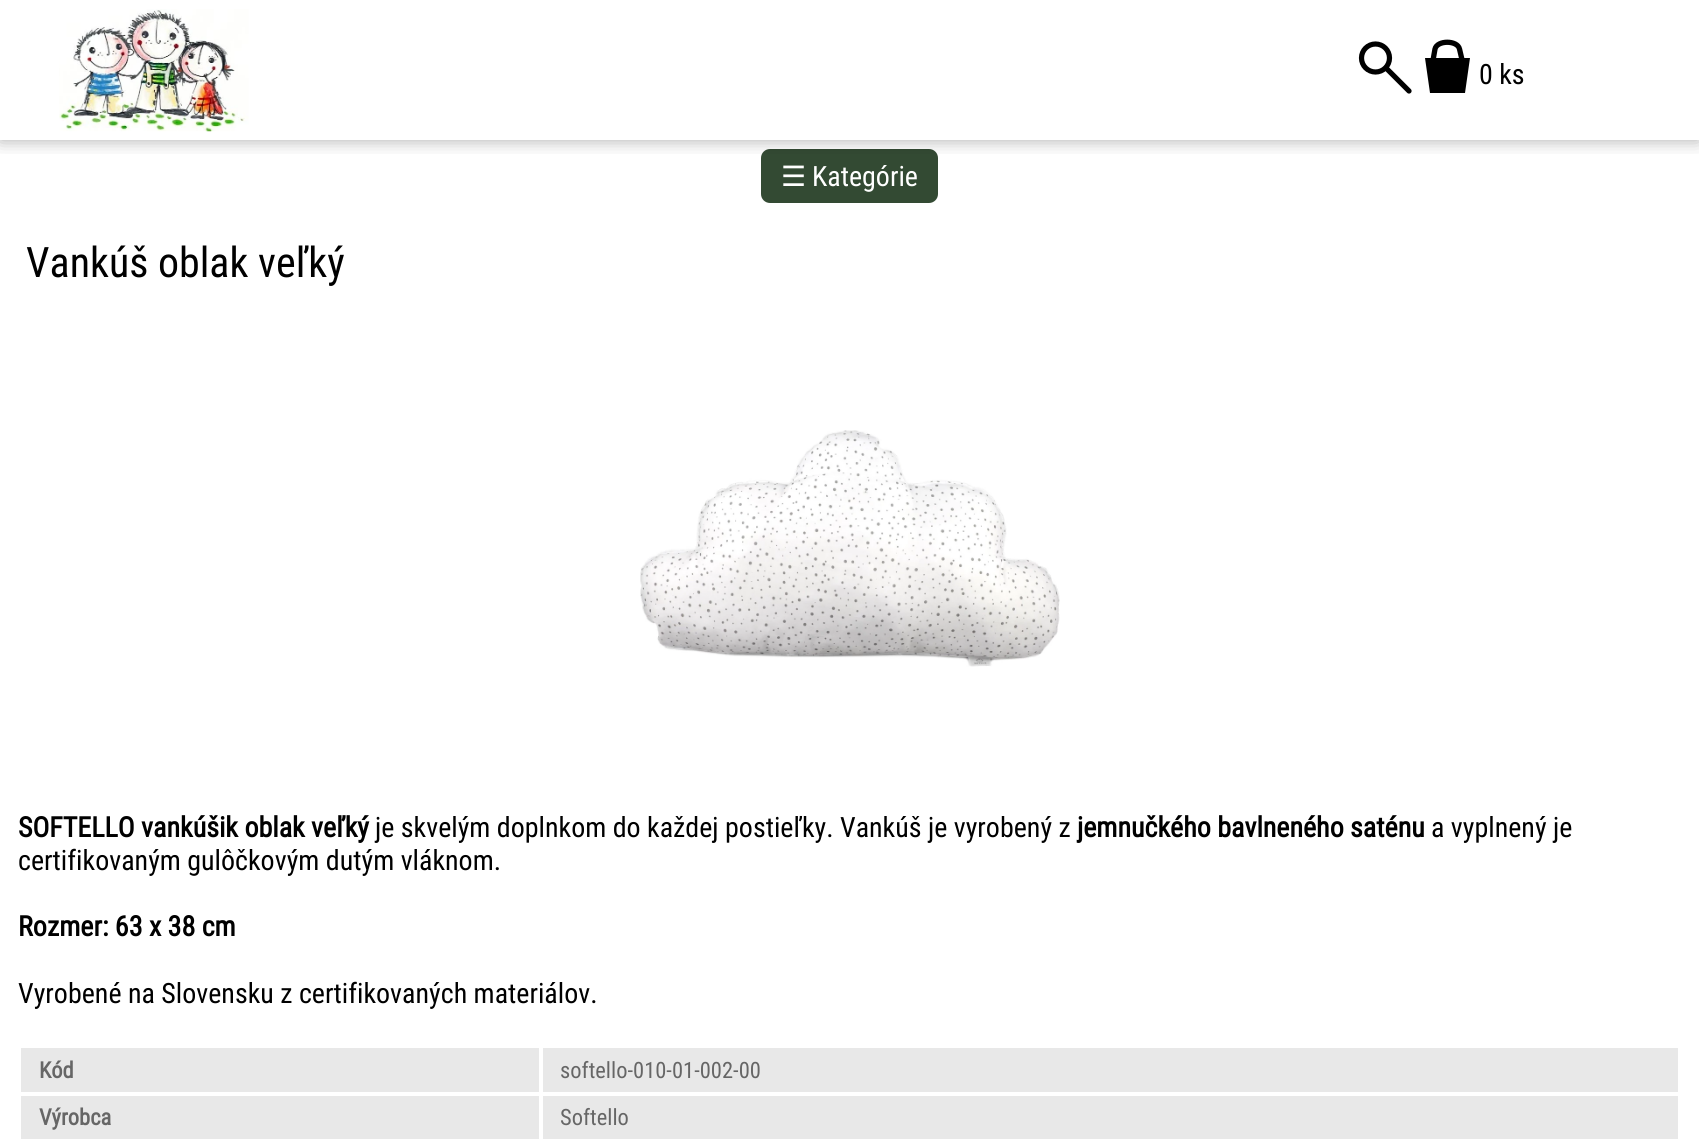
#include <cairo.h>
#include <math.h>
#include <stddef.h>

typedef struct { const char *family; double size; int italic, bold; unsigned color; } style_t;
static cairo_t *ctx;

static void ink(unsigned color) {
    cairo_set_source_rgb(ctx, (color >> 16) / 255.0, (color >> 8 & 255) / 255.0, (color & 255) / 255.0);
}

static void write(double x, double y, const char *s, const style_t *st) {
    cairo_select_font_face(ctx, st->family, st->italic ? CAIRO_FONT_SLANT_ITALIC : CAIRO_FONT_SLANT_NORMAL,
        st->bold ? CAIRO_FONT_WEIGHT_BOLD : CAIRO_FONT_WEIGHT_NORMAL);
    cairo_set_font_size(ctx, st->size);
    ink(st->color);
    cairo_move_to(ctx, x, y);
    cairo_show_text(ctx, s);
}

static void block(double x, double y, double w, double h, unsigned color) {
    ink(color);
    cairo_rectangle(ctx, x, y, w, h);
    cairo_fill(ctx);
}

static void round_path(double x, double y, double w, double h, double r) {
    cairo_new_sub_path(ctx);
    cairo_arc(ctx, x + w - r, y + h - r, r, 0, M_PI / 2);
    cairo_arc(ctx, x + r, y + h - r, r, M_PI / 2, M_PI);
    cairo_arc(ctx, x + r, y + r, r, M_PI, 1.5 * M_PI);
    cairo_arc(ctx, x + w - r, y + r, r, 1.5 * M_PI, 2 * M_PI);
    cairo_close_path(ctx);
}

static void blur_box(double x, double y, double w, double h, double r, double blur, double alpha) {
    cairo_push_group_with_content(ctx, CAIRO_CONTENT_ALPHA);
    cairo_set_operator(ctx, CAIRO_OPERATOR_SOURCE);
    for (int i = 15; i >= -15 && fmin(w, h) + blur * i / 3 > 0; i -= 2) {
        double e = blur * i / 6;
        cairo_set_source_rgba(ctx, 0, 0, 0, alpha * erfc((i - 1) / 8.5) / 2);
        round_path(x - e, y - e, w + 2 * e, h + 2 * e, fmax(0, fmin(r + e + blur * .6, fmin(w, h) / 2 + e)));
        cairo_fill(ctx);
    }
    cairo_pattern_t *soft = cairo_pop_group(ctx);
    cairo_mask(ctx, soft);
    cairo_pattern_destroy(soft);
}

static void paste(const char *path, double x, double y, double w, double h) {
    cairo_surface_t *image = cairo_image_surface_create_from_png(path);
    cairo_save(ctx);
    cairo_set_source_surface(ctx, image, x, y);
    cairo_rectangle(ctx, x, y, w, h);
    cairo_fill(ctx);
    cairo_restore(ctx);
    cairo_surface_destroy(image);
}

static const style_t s1 = {"Roboto Condensed", 28, 0, 0, 0x000000};
static const style_t s2 = {"DejaVu Sans", 28, 0, 0, 0xffffff};
static const style_t s3 = {"Roboto Condensed", 28, 0, 0, 0xffffff};
static const style_t s4 = {"Roboto Condensed", 42, 0, 0, 0x000000};
static const style_t s5 = {"Roboto Condensed", 28, 0, 1, 0x000000};
static const style_t s6 = {"Roboto Condensed", 22.5, 0, 1, 0x666666};
static const style_t s7 = {"Roboto Condensed", 22.5, 0, 0, 0x666666};

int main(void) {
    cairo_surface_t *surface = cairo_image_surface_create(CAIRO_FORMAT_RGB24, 1699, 1143);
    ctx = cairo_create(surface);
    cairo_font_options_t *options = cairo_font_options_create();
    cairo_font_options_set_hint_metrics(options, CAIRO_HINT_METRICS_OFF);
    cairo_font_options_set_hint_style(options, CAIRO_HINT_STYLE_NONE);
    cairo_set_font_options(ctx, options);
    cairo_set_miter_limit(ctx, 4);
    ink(0xffffff);
    cairo_paint(ctx);
    ink(0x334a33);
    round_path(762, 150, 175, 52, 8);
    cairo_fill_preserve(ctx);
    cairo_stroke(ctx);
    cairo_save(ctx);
    cairo_rectangle(ctx, 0, 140, 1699, 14);
    cairo_clip(ctx);
    ink(0x000000);
    blur_box(0, 0, 1699, 140, 0, 9, 0.33);
    cairo_restore(ctx);
    paste("pic1.png", 59, 9, 190, 123);
    cairo_arc(ctx, 1375.5, 58, 14, 0, 2 * M_PI);
    ink(0x000000);
    cairo_set_line_width(ctx, 5.2);
    cairo_stroke(ctx);
    cairo_new_path(ctx);
    cairo_move_to(ctx, 1386, 68);
    cairo_line_to(ctx, 1409, 91);
    cairo_set_line_cap(ctx, CAIRO_LINE_CAP_ROUND);
    cairo_stroke(ctx);
    cairo_new_path(ctx);
    cairo_move_to(ctx, 1425, 58);
    cairo_line_to(ctx, 1430, 93);
    cairo_line_to(ctx, 1465, 93);
    cairo_line_to(ctx, 1470, 58);
    cairo_close_path(ctx);
    cairo_fill(ctx);
    cairo_new_path(ctx);
    cairo_move_to(ctx, 1433.5, 57.5);
    cairo_line_to(ctx, 1435, 49);
    cairo_curve_to(ctx, 1437, 40, 1457.5, 40, 1459.5, 49);
    cairo_line_to(ctx, 1461.5, 57.5);
    cairo_set_line_width(ctx, 5.3);
    cairo_set_line_cap(ctx, CAIRO_LINE_CAP_SQUARE);
    cairo_stroke(ctx);
    write(1479, 84, "0 ks", &s1);
    write(781, 186, "☰", &s2);
    write(812, 186, "Kategórie", &s3);
    write(26, 277, "Vankúš oblak veľký", &s4);
    paste("pic2.png", 640, 430, 420, 237);
    write(18, 837, "SOFTELLO vankúšik oblak veľký", &s5);
    write(375, 837, "je skvelým doplnkom do každej postieľky. Vankúš je vyrobený z", &s1);
    write(1077, 837, "jemnučkého bavlneného saténu", &s5);
    write(1431, 837, "a vyplnený je", &s1);
    write(18, 870, "certifikovaným gulôčkovým dutým vláknom.", &s1);
    write(18, 936, "Rozmer: 63 x 38 cm", &s5);
    write(18, 1003, "Vyrobené na Slovensku z certifikovaných materiálov.", &s1);
    block(21, 1048, 518, 44, 0xe8e8e8);
    write(39, 1078, "Kód", &s6);
    block(543, 1048, 1135, 44, 0xe8e8e8);
    write(560, 1078, "softello-010-01-002-00", &s7);
    block(21, 1096, 518, 43, 0xe8e8e8);
    write(39, 1125, "Výrobca", &s6);
    block(543, 1096, 1135, 43, 0xe8e8e8);
    write(560, 1125, "Softello", &s7);
    cairo_surface_write_to_png(surface, "screenshot.png");
    cairo_font_options_destroy(options);
    cairo_destroy(ctx);
    cairo_surface_destroy(surface);
    return 0;
}
